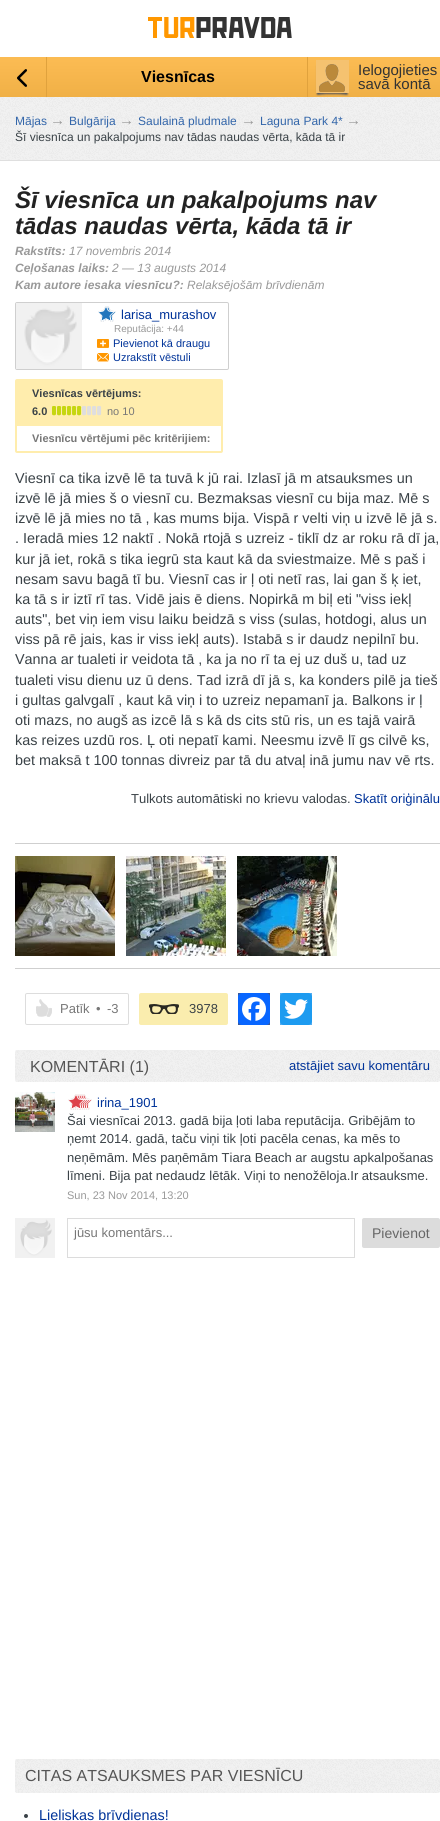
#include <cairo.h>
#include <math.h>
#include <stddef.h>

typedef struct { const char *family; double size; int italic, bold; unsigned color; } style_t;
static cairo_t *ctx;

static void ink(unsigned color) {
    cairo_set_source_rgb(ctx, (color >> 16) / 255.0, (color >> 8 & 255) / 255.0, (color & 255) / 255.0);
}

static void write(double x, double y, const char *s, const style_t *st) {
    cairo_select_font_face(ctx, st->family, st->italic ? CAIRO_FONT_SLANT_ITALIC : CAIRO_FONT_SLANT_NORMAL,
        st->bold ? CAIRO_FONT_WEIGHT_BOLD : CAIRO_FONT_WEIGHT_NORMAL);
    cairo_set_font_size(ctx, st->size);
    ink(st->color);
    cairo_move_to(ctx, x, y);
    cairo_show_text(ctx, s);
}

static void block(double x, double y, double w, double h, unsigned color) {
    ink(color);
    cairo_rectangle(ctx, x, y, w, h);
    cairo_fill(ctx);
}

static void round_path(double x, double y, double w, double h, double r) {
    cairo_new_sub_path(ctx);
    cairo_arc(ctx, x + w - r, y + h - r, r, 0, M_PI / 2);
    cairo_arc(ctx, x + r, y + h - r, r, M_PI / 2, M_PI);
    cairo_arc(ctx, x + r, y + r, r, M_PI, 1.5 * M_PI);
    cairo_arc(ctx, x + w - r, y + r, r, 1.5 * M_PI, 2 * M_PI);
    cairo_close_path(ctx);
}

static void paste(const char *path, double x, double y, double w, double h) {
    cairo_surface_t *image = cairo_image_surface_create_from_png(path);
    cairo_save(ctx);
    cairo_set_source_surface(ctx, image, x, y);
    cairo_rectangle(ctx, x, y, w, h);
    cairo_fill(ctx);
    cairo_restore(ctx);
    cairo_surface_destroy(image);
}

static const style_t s1 = {"Liberation Sans", 16, 0, 1, 0x000000};
static const style_t s2 = {"Liberation Sans", 15, 0, 0, 0x333333};
static const style_t s3 = {"Liberation Sans", 12, 0, 0, 0x3366aa};
static const style_t s4 = {"Liberation Sans", 15, 0, 0, 0x999999};
static const style_t s5 = {"Liberation Sans", 12, 0, 0, 0x3a4247};
static const style_t s6 = {"Liberation Sans", 24, 1, 1, 0x222222};
static const style_t s7 = {"Liberation Sans", 12, 1, 1, 0x999999};
static const style_t s8 = {"Liberation Sans", 12, 1, 0, 0x999999};
static const style_t s9 = {"Liberation Sans", 13, 0, 0, 0x003399};
static const style_t s10 = {"Liberation Sans", 10, 0, 0, 0x999999};
static const style_t s11 = {"Liberation Sans", 11, 0, 0, 0x003399};
static const style_t s12 = {"Liberation Sans", 11, 0, 1, 0x3a4247};
static const style_t s13 = {"Liberation Sans", 11, 0, 0, 0x777777};
static const style_t s14 = {"Liberation Sans", 11, 0, 1, 0x777777};
static const style_t s15 = {"Liberation Sans", 14.4, 0, 0, 0x3a4247};
static const style_t s16 = {"Liberation Sans", 13, 0, 0, 0x3a4247};
static const style_t s17 = {"Liberation Sans", 13, 0, 0, 0x777777};
static const style_t s18 = {"Liberation Sans", 16, 0, 0, 0x555555};
static const style_t s19 = {"Liberation Sans", 11, 0, 0, 0x999999};
static const style_t s20 = {"Liberation Sans", 14, 0, 0, 0x666666};
static const style_t s21 = {"Liberation Sans", 14.4, 0, 0, 0x003399};

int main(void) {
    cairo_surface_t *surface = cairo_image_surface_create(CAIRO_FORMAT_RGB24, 440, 1821);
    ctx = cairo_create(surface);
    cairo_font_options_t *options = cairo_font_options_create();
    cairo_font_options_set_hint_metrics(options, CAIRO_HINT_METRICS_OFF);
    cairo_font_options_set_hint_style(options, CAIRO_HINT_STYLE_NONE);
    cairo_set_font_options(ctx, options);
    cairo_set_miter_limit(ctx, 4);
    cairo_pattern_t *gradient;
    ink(0xffffff);
    cairo_paint(ctx);
    paste("pic1.png", 148, 17, 144, 21);
    gradient = cairo_pattern_create_linear(220, 57, 220, 97);
    cairo_pattern_add_color_stop_rgba(gradient, 0.1, 0.984, 0.733, 0.322, 1);
    cairo_pattern_add_color_stop_rgba(gradient, 1, 0.941, 0.69, 0.275, 1);
    cairo_set_source(ctx, gradient);
    cairo_pattern_destroy(gradient);
    cairo_rectangle(ctx, 0, 57, 440, 40);
    cairo_fill(ctx);
    paste("pic2.png", 17, 69, 10, 18);
    block(46, 57, 1, 40, 0xe0a23d);
    write(141, 82, "Viesnīcas", &s1);
    block(307, 57, 1, 40, 0xe0a23d);
    paste("pic3.png", 315, 60, 34, 36);
    write(358, 75, "Ielogojieties", &s2);
    write(358, 89, "savā kontā", &s2);
    paste("pic4.png", 0, 97, 440, 63);
    block(0, 160, 440, 1, 0xdfdfdf);
    write(15, 125, "Mājas", &s3);
    write(50, 125, "→", &s4);
    write(69, 125, "Bulgārija", &s3);
    write(119, 125, "→", &s4);
    write(138, 125, "Saulainā pludmale", &s3);
    write(241, 125, "→", &s4);
    write(260, 125, "Laguna Park 4*", &s3);
    write(346, 125, "→", &s4);
    write(15, 141, "Šī viesnīca un pakalpojums nav tādas naudas vērta, kāda tā ir", &s5);
    write(15, 208, "Šī viesnīca un pakalpojums nav", &s6);
    write(15, 234, "tādas naudas vērta, kāda tā ir", &s6);
    write(15, 255, "Rakstīts:", &s7);
    write(69, 255, "17 novembris 2014", &s8);
    write(15, 272, "Ceļošanas laiks:", &s7);
    write(112, 272, "2 — 13 augusts 2014", &s8);
    write(15, 289, "Kam autore iesaka viesnīcu?:", &s7);
    write(187, 289, "Relaksējošām brīvdienām", &s8);
    round_path(15.5, 302.5, 213, 67, 1.5);
    ink(0xcfcfcf);
    cairo_set_line_width(ctx, 1);
    cairo_stroke(ctx);
    paste("pic5.png", 16, 303, 66, 66);
    paste("pic6.png", 98, 306, 18, 16);
    write(121, 319, "larisa_murashov", &s9);
    write(114, 332, "Reputācija: +44", &s10);
    paste("pic7.png", 97, 339, 12, 9);
    write(113, 347, "Pievienot kā draugu", &s11);
    paste("pic8.png", 97, 353, 12, 9);
    write(113, 361, "Uzrakstīt vēstuli", &s11);
    round_path(16, 380, 206, 72, 1);
    ink(0xffedad);
    cairo_set_line_width(ctx, 2);
    cairo_stroke(ctx);
    block(17, 381, 204, 45, 0xffedad);
    write(32, 397, "Viesnīcas vērtējums:", &s12);
    write(32, 415, "6.0", &s12);
    paste("pic9.png", 52, 406, 50, 10);
    write(107, 415, "no 10", &s13);
    write(32, 442, "Viesnīcu vērtējumi pēc kritērijiem:", &s14);
    write(15, 483, "Viesnī ca tika izvē lē ta tuvā k jū rai. Izlasī jā m atsauksmes un", &s15);
    write(15, 503, "izvē lē jā mies š o viesnī cu. Bezmaksas viesnī cu bija maz. Mē s", &s15);
    write(15, 523, "izvē lē jā mies no tā , kas mums bija. Vispā r velti viņ u izvē lē jā s.", &s15);
    write(15, 543, ". Ieradā mies 12 naktī . Nokā rtojā s uzreiz - tiklī dz ar roku rā dī ja,", &s15);
    write(15, 564, "kur jā iet, rokā s tika iegrū sta kaut kā da sviestmaize. Mē s paš i", &s15);
    write(15, 584, "nesam savu bagā tī bu. Viesnī cas ir ļ oti netī ras, lai gan š ķ iet,", &s15);
    write(15, 604, "ka tā s ir iztī rī tas. Vidē jais ē diens. Nopirkā m biļ eti \"viss iekļ", &s15);
    write(15, 624, "auts\", bet viņ iem visu laiku beidzā s viss (sulas, hotdogi, alus un", &s15);
    write(15, 644, "viss pā rē jais, kas ir viss iekļ auts). Istabā s ir daudz nepilnī bu.", &s15);
    write(15, 664, "Vanna ar tualeti ir veidota tā , ka ja no rī ta ej uz duš u, tad uz", &s15);
    write(15, 685, "tualeti visu dienu uz ū dens. Tad izrā dī jā s, ka konders pilē ja tieš", &s15);
    write(15, 705, "i gultas galvgalī , kaut kā viņ i to uzreiz nepamanī ja. Balkons ir ļ", &s15);
    write(15, 725, "oti mazs, no augš as izcē lā s kā ds cits stū ris, un es tajā vairā", &s15);
    write(15, 745, "kas reizes uzdū ros. Ļ oti nepatī kami. Neesmu izvē lī gs cilvē ks,", &s15);
    write(15, 765, "bet maksā t 100 tonnas divreiz par tā du atvaļ inā jumu nav vē rts.", &s15);
    write(131, 803, "Tulkots automātiski no krievu valodas.", &s16);
    write(354, 803, "Skatīt oriģinālu", &s9);
    block(15, 843, 425, 1, 0xcfcfcf);
    paste("pic10.png", 15, 856, 100, 100);
    paste("pic11.png", 126, 856, 100, 100);
    paste("pic12.png", 237, 856, 100, 100);
    block(15, 968, 425, 1, 0xcfcfcf);
    round_path(25.5, 993.5, 103, 31, 1.5);
    ink(0xdddddd);
    cairo_set_line_width(ctx, 1);
    cairo_stroke(ctx);
    paste("pic13.png", 36, 999, 16, 18);
    write(60, 1013, "Patīk", &s17);
    write(96, 1013, "•", &s17);
    write(107, 1013, "-3", &s17);
    ink(0xfaedae);
    round_path(139, 993, 89, 32, 2);
    cairo_fill(ctx);
    paste("pic14.png", 149, 1004, 30, 10);
    write(189, 1013, "3978", &s16);
    block(238, 993, 32, 32, 0x3b5998);
    ink(0x0866ff);
    round_path(238, 993, 32, 32, 4);
    cairo_fill(ctx);
    paste("pic15.png", 242, 997, 24, 24);
    block(280, 993, 32, 32, 0x55acee);
    ink(0x1d9bf0);
    round_path(280, 993, 32, 32, 4);
    cairo_fill(ctx);
    paste("pic16.png", 284, 999, 24, 20);
    paste("pic17.png", 15, 1050, 425, 32);
    write(30, 1072, "KOMENTĀRI (1)", &s18);
    write(289, 1070, "atstājiet savu komentāru", &s9);
    paste("pic18.png", 15, 1092, 40, 40);
    paste("pic19.png", 68, 1094, 24, 16);
    write(97, 1107, "irina_1901", &s9);
    write(67, 1125, "Šai viesnīcai 2013. gadā bija ļoti laba reputācija. Gribējām to", &s16);
    write(67, 1143, "ņemt 2014. gadā, taču viņi tik ļoti pacēla cenas, ka mēs to", &s16);
    write(67, 1162, "neņēmām. Mēs paņēmām Tiara Beach ar augstu apkalpošanas", &s16);
    write(67, 1180, "līmeni. Bija pat nedaudz lētāk. Viņi to nenožēloja.Ir atsauksme.", &s16);
    write(67, 1199, "Sun, 23 Nov 2014, 13:20", &s19);
    paste("pic20.png", 15, 1218, 40, 40);
    cairo_rectangle(ctx, 67.5, 1218.5, 287, 39);
    ink(0xdcdcdc);
    cairo_stroke(ctx);
    write(74, 1237, "jūsu komentārs...", &s17);
    ink(0xdcdcdc);
    round_path(362, 1218, 78, 30, 2);
    cairo_fill(ctx);
    write(372, 1238, "Pievienot", &s20);
    paste("pic21.png", 15, 1759, 425, 34);
    write(25, 1781, "CITAS ATSAUKSMES PAR VIESNĪCU", &s18);
    ink(0x3a4247);
    cairo_new_path(ctx);
    cairo_arc(ctx, 26, 1816, 2, 0, 2 * M_PI);
    cairo_fill(ctx);
    write(39, 1820, "Lieliskas brīvdienas!", &s21);
    cairo_surface_write_to_png(surface, "screenshot.png");
    cairo_font_options_destroy(options);
    cairo_destroy(ctx);
    cairo_surface_destroy(surface);
    return 0;
}
